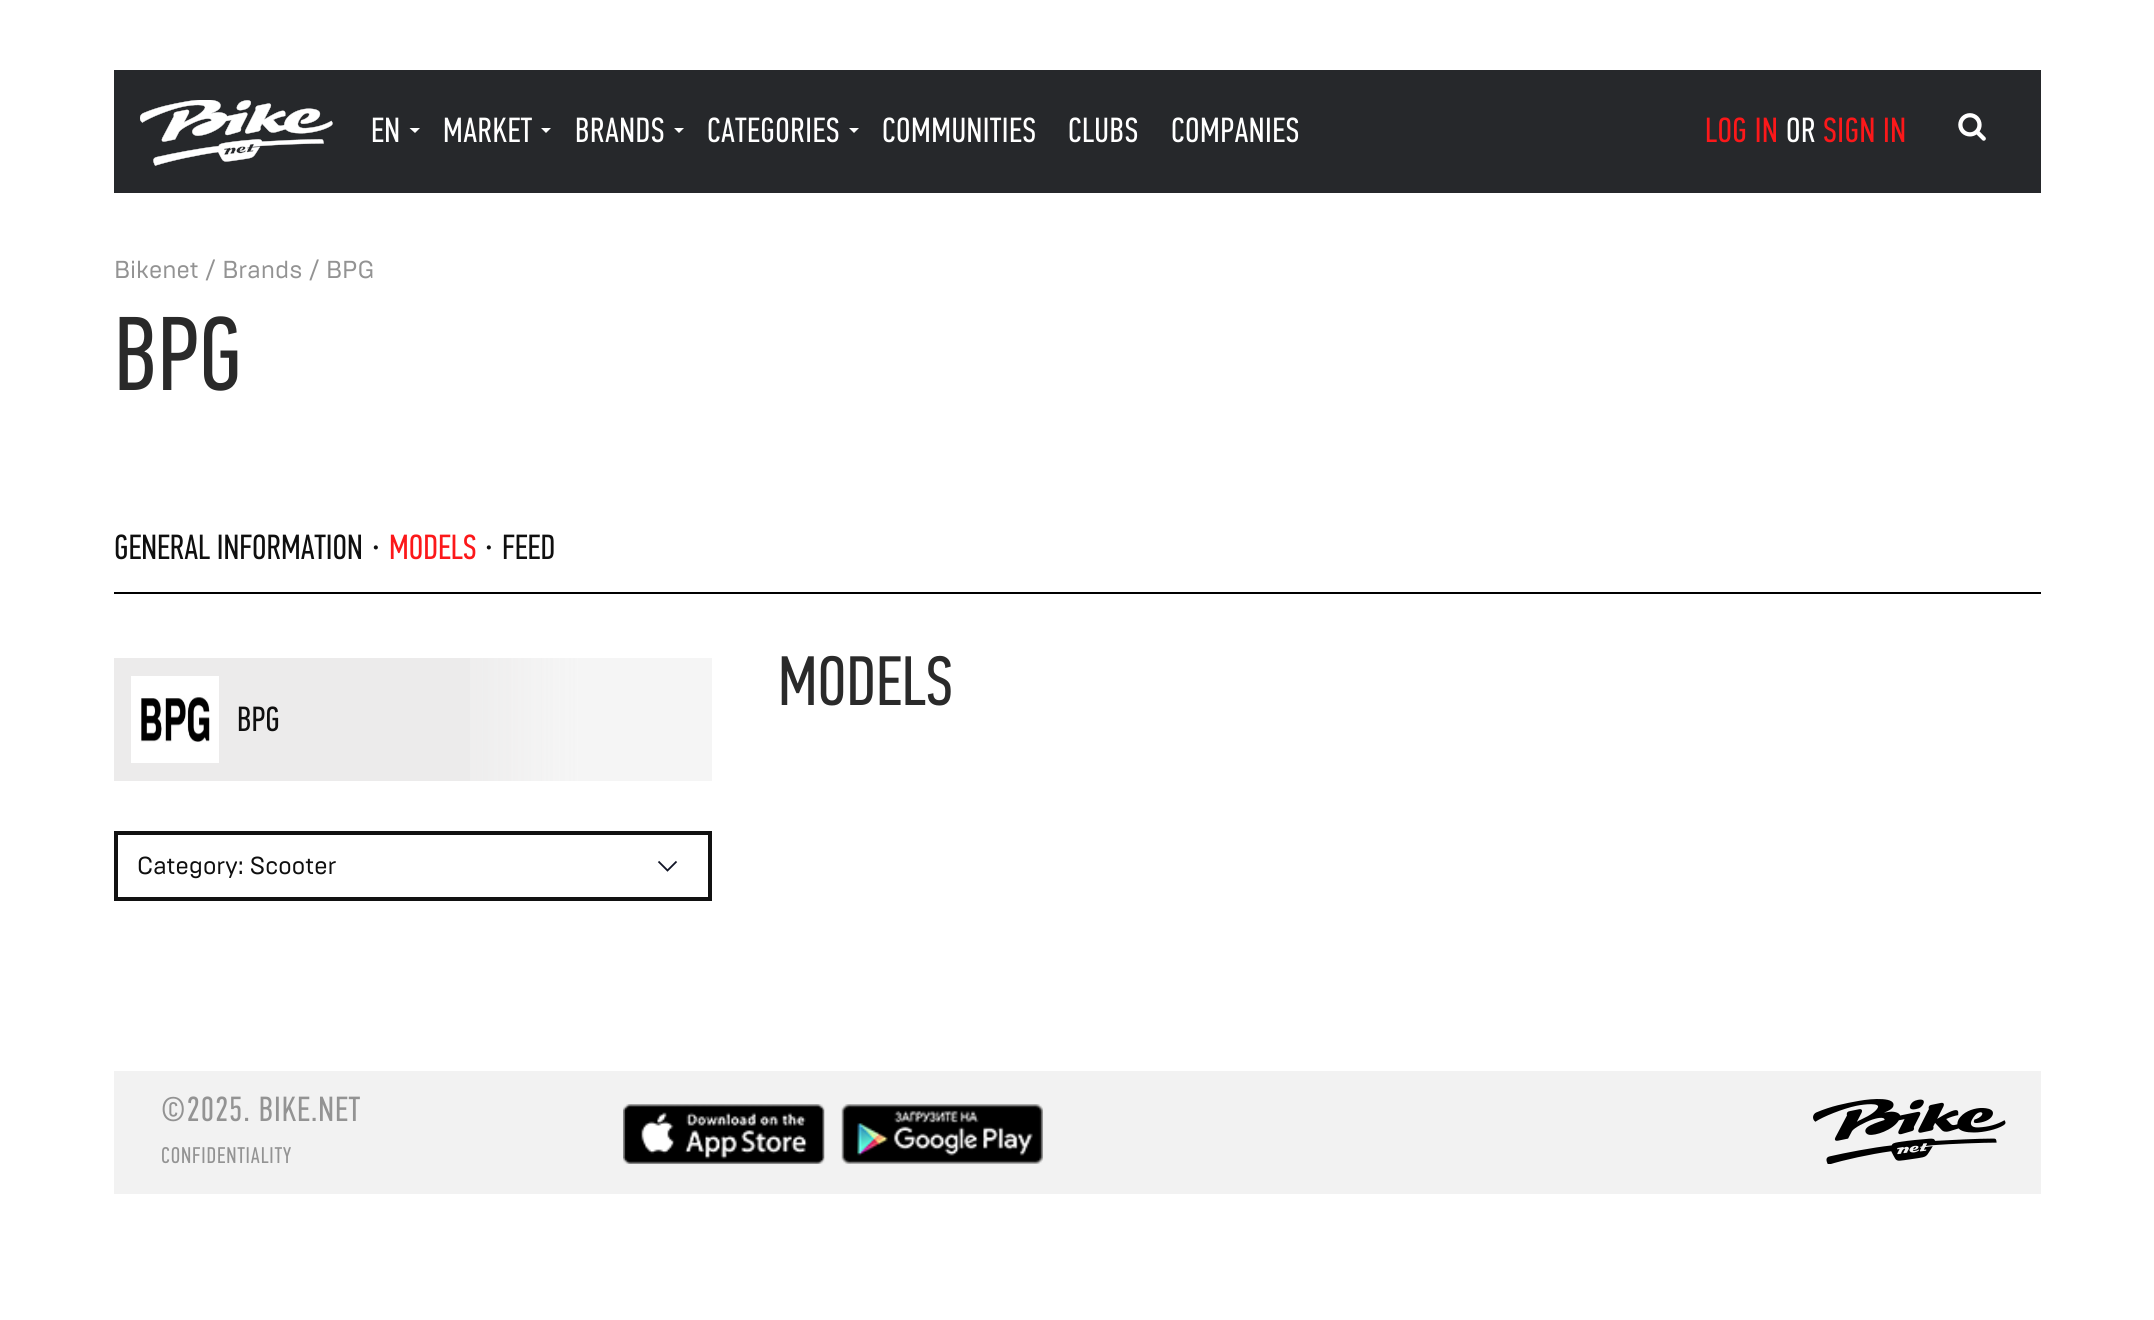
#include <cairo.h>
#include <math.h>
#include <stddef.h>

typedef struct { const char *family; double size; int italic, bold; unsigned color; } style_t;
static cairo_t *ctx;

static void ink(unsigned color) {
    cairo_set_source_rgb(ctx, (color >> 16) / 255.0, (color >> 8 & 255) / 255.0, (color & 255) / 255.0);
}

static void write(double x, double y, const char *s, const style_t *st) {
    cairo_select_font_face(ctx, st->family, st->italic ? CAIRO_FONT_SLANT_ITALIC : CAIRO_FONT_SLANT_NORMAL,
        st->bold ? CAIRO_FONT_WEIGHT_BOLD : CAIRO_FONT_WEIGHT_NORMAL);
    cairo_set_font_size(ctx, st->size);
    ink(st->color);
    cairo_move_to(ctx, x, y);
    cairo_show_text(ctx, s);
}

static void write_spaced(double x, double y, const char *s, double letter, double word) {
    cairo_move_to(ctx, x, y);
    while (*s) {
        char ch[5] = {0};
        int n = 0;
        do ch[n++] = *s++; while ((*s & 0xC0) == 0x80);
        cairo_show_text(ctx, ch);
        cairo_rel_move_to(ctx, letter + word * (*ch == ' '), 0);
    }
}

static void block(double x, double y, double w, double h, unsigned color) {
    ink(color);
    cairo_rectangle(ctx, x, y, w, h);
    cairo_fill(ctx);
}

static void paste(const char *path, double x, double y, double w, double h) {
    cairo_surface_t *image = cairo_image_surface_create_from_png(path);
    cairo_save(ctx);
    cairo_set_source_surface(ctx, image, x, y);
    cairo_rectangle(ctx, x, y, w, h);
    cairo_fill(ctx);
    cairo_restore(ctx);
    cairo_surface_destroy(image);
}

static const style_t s1 = {"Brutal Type", 24.5, 0, 0, 0x939393};
static const style_t s2 = {"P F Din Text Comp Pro", 105, 0, 0, 0x2a2a2a};
static const style_t s3 = {"P F Din Text Comp Pro", 35, 0, 0, 0x0f0f0f};
static const style_t s4 = {"Liberation Serif", 35, 0, 0, 0x0f0f0f};
static const style_t s5 = {"P F Din Text Comp Pro", 35, 0, 0, 0xfc181a};
static const style_t s6 = {"P F Din Text Comp Pro", 70, 0, 0, 0x2a2a2a};
static const style_t s7 = {"Brutal Type", 24.5, 0, 0, 0x0f0f0f};

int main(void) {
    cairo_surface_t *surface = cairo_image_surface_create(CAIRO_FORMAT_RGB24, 2154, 1320);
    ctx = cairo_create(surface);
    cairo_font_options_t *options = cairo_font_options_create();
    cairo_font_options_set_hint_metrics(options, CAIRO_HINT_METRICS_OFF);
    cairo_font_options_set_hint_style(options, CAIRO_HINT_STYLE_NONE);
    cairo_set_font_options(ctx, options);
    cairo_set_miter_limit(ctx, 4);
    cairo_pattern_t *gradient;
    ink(0xffffff);
    cairo_paint(ctx);
    block(114, 70, 1927, 123, 0x26282b);
    paste("pic1.png", 140, 100, 193, 66);
    cairo_select_font_face(ctx, "P F Din Text Comp Pro", CAIRO_FONT_SLANT_NORMAL, CAIRO_FONT_WEIGHT_NORMAL);
    cairo_set_font_size(ctx, 35);
    ink(0xffffff);
    write_spaced(371, 142, "EN", 0.5, 0);
    cairo_new_path(ctx);
    cairo_move_to(ctx, 409.5, 128);
    cairo_line_to(ctx, 420, 128);
    cairo_line_to(ctx, 415, 133);
    cairo_close_path(ctx);
    cairo_fill(ctx);
    write_spaced(443, 142, "MARKET", 0.5, 0);
    cairo_new_path(ctx);
    cairo_move_to(ctx, 541, 128);
    cairo_line_to(ctx, 551, 128);
    cairo_line_to(ctx, 546, 133);
    cairo_close_path(ctx);
    cairo_fill(ctx);
    write_spaced(575, 142, "BRANDS", 0.5, 0);
    cairo_new_path(ctx);
    cairo_move_to(ctx, 674, 128);
    cairo_line_to(ctx, 684, 128);
    cairo_line_to(ctx, 679, 133);
    cairo_close_path(ctx);
    cairo_fill(ctx);
    write_spaced(707, 142, "CATEGORIES", 0.5, 0);
    cairo_new_path(ctx);
    cairo_move_to(ctx, 849, 128);
    cairo_line_to(ctx, 859, 128);
    cairo_line_to(ctx, 854, 133);
    cairo_close_path(ctx);
    cairo_fill(ctx);
    write_spaced(882, 142, "COMMUNITIES", 0.5, 0);
    write_spaced(1068, 142, "CLUBS", 0.5, 0);
    write_spaced(1171, 142, "COMPANIES", 0.5, 0);
    ink(0xfc181a);
    write_spaced(1705, 142, "LOG IN", 0.5, 0);
    ink(0xffffff);
    write_spaced(1786, 142, "OR", 0.5, 0);
    ink(0xfc181a);
    write_spaced(1823, 142, "SIGN IN", 0.5, 0);
    paste("pic2.png", 1958, 113, 28, 28);
    write(114, 278, "Bikenet / Brands / BPG", &s1);
    write(114, 390, "BPG", &s2);
    block(114, 592, 1927, 2, 0x000000);
    write(114, 559, "GENERAL INFORMATION", &s3);
    write(370, 559, "·", &s4);
    write(389, 559, "MODELS", &s5);
    write(483, 559, "·", &s4);
    write(502, 559, "FEED", &s3);
    write(778, 705, "MODELS", &s6);
    block(114, 658, 465, 123, 0xecebeb);
    block(131, 676, 88, 87, 0xffffff);
    paste("pic3.png", 140, 695, 70, 48);
    write(237, 731, "BPG", &s3);
    gradient = cairo_pattern_create_linear(114, 719, 712, 719);
    cairo_pattern_add_color_stop_rgba(gradient, 0, 0.961, 0.961, 0.961, 0);
    cairo_pattern_add_color_stop_rgba(gradient, 0.55, 0.961, 0.961, 0.961, 0);
    cairo_pattern_add_color_stop_rgba(gradient, 0.71, 0.961, 0.961, 0.961, 0.8);
    cairo_pattern_add_color_stop_rgba(gradient, 0.78, 0.961, 0.961, 0.961, 1);
    cairo_set_source(ctx, gradient);
    cairo_pattern_destroy(gradient);
    cairo_rectangle(ctx, 470, 658, 242, 123);
    cairo_fill(ctx);
    cairo_new_path(ctx);
    cairo_move_to(ctx, 676.5, 861.5);
    cairo_line_to(ctx, 667.5, 870.5);
    cairo_line_to(ctx, 658.5, 861.5);
    ink(0x111526);
    cairo_set_line_width(ctx, 1.8);
    cairo_stroke(ctx);
    cairo_rectangle(ctx, 116, 833, 594, 66);
    ink(0x111111);
    cairo_set_line_width(ctx, 4);
    cairo_stroke(ctx);
    write(137, 874, "Category: Scooter", &s7);
    block(114, 1071, 1927, 123, 0xf2f2f2);
    cairo_select_font_face(ctx, "P F Din Text Comp Pro", CAIRO_FONT_SLANT_NORMAL, CAIRO_FONT_WEIGHT_NORMAL);
    cairo_set_font_size(ctx, 35);
    ink(0x939393);
    write_spaced(161, 1121, "©2025. BIKE.NET", 0.9, 0);
    cairo_set_font_size(ctx, 22.75);
    write_spaced(161, 1163, "CONFIDENTIALITY", 0.9, 0);
    paste("pic4.png", 623, 1104, 202, 60);
    paste("pic5.png", 841, 1104, 202, 60);
    paste("pic6.png", 1813, 1099, 193, 65);
    cairo_surface_write_to_png(surface, "screenshot.png");
    cairo_font_options_destroy(options);
    cairo_destroy(ctx);
    cairo_surface_destroy(surface);
    return 0;
}
